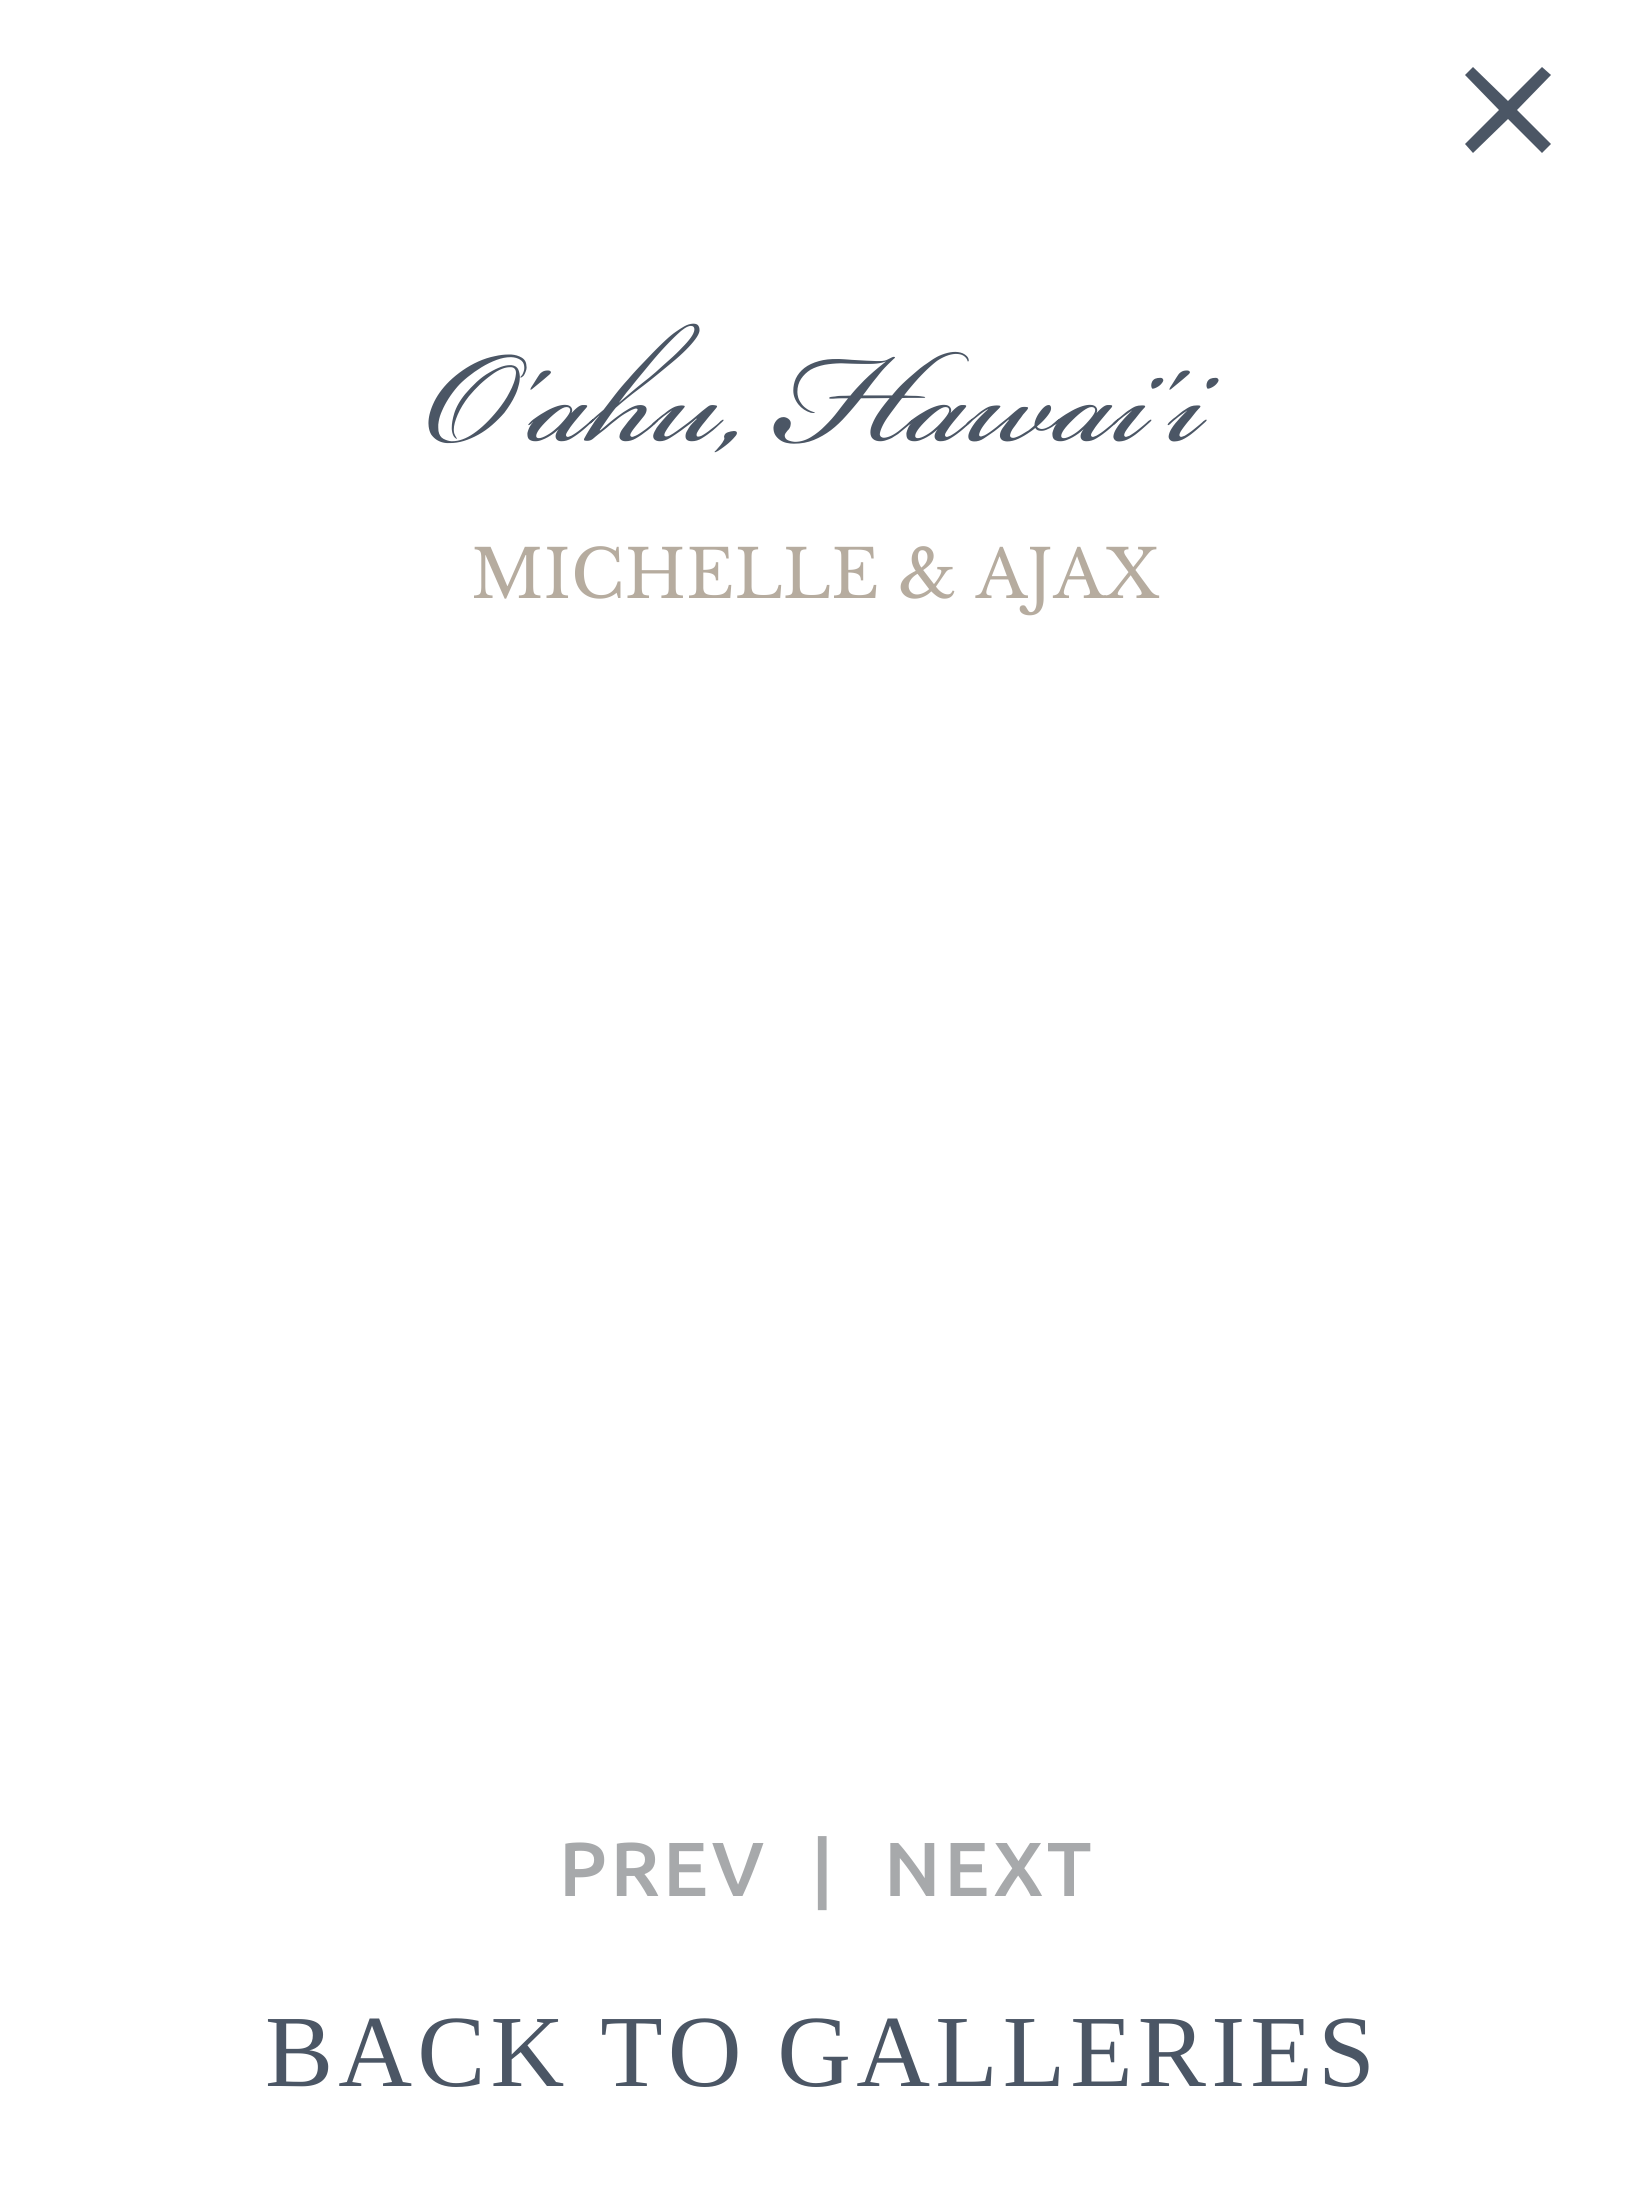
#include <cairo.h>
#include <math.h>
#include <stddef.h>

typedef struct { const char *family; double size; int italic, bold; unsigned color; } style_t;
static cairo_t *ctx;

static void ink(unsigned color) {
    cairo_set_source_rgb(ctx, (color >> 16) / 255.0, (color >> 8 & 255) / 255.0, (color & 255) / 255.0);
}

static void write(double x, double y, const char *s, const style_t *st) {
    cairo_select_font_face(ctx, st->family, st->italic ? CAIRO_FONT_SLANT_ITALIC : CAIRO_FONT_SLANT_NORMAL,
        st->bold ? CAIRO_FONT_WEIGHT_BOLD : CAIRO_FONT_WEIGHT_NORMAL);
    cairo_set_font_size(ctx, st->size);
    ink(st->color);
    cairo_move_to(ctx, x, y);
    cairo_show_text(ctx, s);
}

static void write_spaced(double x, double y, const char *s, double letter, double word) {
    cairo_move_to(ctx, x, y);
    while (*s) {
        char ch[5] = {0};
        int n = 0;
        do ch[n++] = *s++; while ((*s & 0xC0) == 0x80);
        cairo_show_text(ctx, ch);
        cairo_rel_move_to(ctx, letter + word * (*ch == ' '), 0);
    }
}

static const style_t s1 = {"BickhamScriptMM", 204.5, 1, 0, 0x4b5665};
static const style_t s2 = {"Libre Baskerville", 66.5, 0, 0, 0xb6ac9f};

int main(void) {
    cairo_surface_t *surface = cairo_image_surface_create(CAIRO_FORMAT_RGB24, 1635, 2187);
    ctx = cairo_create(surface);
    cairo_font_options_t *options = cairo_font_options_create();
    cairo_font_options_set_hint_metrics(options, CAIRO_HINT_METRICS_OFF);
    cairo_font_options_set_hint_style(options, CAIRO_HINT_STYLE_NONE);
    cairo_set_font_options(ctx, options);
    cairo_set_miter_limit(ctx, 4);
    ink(0xffffff);
    cairo_paint(ctx);
    ink(0x4b5665);
    cairo_new_path(ctx);
    cairo_move_to(ctx, 1551, 75);
    cairo_line_to(ctx, 1542, 67);
    cairo_line_to(ctx, 1508, 101);
    cairo_line_to(ctx, 1473, 67);
    cairo_line_to(ctx, 1465, 75);
    cairo_line_to(ctx, 1499, 110);
    cairo_line_to(ctx, 1465, 144);
    cairo_line_to(ctx, 1473, 153);
    cairo_line_to(ctx, 1508, 119);
    cairo_line_to(ctx, 1542, 153);
    cairo_line_to(ctx, 1551, 144);
    cairo_line_to(ctx, 1517, 110);
    cairo_fill(ctx);
    write(426, 440, "O'ahu, Hawai'i", &s1);
    write(471, 598, "MICHELLE & AJAX", &s2);
    cairo_select_font_face(ctx, "Ubuntu Medium", CAIRO_FONT_SLANT_NORMAL, CAIRO_FONT_WEIGHT_NORMAL);
    cairo_set_font_size(ctx, 76.5);
    ink(0xa7a9ab);
    write_spaced(559, 1896, "PREV  |", 3.75, 0);
    write_spaced(884, 1896, "NEXT", 3.75, 0);
    cairo_select_font_face(ctx, "Liberation Serif", CAIRO_FONT_SLANT_NORMAL, CAIRO_FONT_WEIGHT_NORMAL);
    cairo_set_font_size(ctx, 102.25);
    ink(0x4b5665);
    write_spaced(265, 2086, "BACK TO GALLERIES", 5.1, 0);
    cairo_surface_write_to_png(surface, "screenshot.png");
    cairo_font_options_destroy(options);
    cairo_destroy(ctx);
    cairo_surface_destroy(surface);
    return 0;
}
